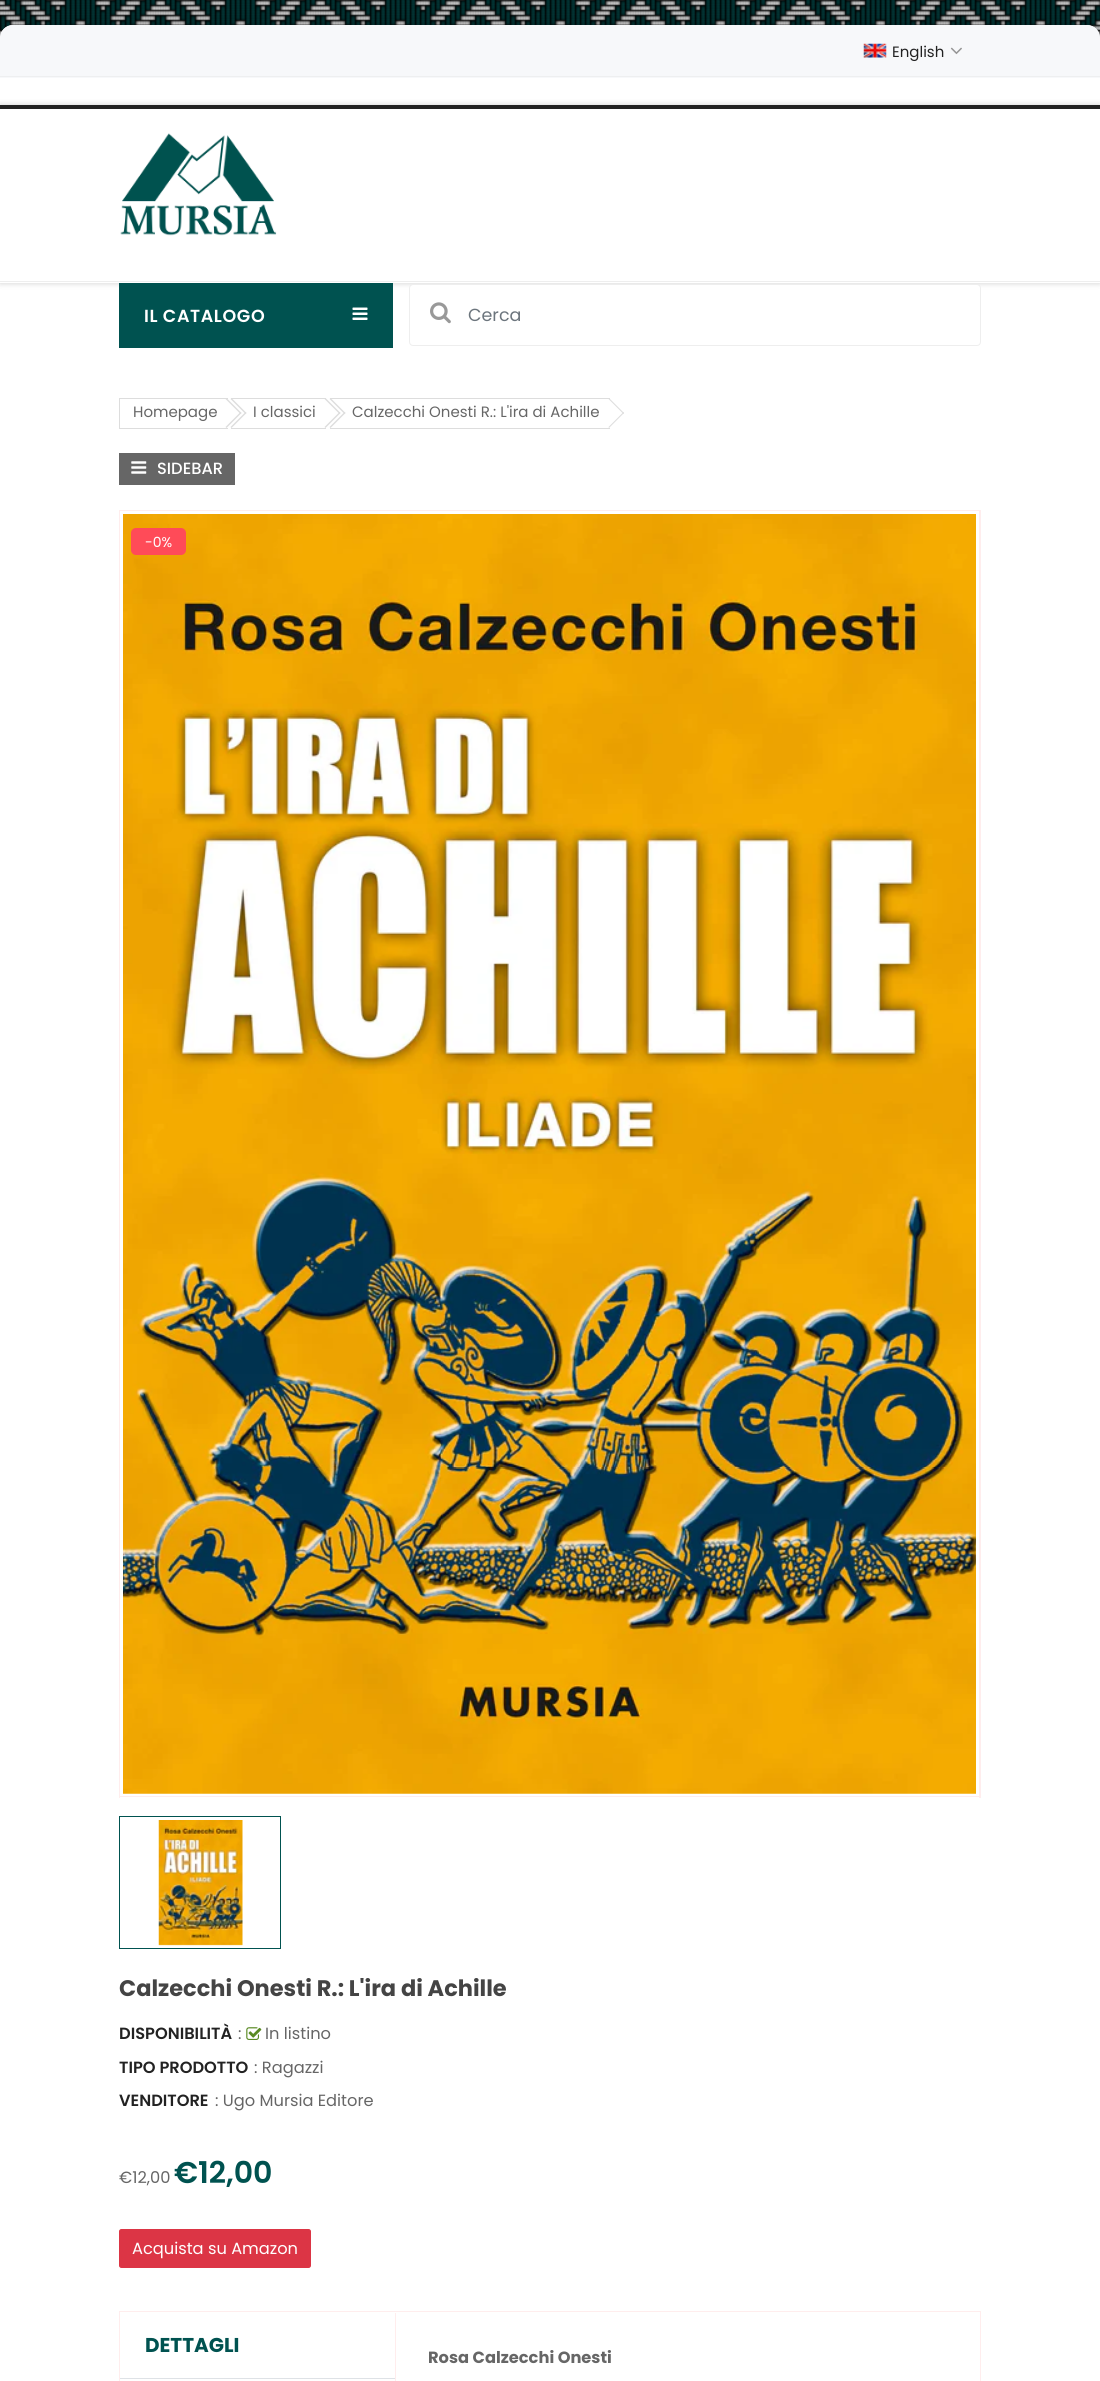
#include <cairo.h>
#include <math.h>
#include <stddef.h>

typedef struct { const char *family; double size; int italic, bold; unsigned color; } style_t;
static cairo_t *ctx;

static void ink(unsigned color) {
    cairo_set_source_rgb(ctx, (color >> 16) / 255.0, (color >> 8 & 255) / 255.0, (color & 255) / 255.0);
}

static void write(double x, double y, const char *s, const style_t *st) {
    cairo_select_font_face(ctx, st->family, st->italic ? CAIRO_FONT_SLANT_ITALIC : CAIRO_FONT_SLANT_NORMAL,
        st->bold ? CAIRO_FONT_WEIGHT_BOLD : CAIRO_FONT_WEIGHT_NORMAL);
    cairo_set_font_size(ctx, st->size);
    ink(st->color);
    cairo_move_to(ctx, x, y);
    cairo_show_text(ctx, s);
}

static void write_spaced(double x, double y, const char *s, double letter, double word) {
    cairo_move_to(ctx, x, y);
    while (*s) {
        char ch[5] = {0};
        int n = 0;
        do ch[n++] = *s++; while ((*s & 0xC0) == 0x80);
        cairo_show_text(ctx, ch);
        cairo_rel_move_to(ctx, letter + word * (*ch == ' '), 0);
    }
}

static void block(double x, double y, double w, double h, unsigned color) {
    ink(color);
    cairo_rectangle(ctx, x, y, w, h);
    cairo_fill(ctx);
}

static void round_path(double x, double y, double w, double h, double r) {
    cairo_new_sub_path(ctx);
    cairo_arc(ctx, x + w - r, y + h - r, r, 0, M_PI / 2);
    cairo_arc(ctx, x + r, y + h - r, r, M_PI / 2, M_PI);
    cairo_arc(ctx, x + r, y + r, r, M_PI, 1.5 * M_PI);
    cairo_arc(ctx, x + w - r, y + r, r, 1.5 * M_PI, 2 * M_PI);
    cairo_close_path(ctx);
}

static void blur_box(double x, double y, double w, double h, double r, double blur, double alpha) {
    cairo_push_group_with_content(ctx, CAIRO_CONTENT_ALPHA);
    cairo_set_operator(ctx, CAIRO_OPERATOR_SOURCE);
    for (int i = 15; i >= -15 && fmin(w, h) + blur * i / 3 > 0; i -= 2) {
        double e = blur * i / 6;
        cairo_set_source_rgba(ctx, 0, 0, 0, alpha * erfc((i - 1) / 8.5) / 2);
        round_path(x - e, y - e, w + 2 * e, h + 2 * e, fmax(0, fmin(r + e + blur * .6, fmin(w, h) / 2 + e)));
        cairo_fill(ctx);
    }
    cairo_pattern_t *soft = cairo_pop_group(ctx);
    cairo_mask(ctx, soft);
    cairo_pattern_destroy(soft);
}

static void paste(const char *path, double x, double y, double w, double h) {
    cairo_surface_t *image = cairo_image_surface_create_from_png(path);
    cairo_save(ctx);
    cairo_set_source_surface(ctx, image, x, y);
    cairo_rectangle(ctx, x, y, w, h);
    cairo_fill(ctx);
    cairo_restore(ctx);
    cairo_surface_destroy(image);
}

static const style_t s1 = {"Poppins", 15, 0, 0, 0x222222};
static const style_t s2 = {"Poppins", 17.5, 0, 0, 0x6c757d};
static const style_t s3 = {"Poppins", 15, 0, 0, 0x666666};
static const style_t s4 = {"Poppins Medium", 16.25, 0, 0, 0xffffff};
static const style_t s5 = {"Poppins", 14, 0, 0, 0xffffff};
static const style_t s6 = {"Poppins", 22.5, 0, 1, 0x444444};
static const style_t s7 = {"Poppins SemiBold", 16.25, 0, 0, 0x222222};
static const style_t s8 = {"Poppins", 16.25, 0, 0, 0x666666};
static const style_t s9 = {"Poppins SemiBold", 30, 0, 0, 0x005250};
static const style_t s10 = {"Poppins", 16.25, 0, 0, 0xffffff};
static const style_t s11 = {"Poppins", 20, 0, 1, 0x005250};
static const style_t s12 = {"Poppins", 16.25, 0, 1, 0x666666};

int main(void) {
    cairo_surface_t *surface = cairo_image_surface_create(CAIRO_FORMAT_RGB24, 1100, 2381);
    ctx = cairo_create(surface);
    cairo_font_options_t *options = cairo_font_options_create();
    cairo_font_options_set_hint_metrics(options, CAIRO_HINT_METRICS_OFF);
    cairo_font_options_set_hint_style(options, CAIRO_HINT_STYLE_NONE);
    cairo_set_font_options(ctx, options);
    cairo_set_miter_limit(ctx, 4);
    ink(0xffffff);
    cairo_paint(ctx);
    paste("pic1.png", 0, 0, 1100, 38);
    ink(0x000000);
    blur_box(0, 25, 1100, 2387, 13, 6, 0.2);
    ink(0xffffff);
    round_path(0, 25, 1100, 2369, 13);
    cairo_fill(ctx);
    ink(0xf7f8fa);
    cairo_new_path(ctx);
    cairo_move_to(ctx, 13, 25);
    cairo_line_to(ctx, 1087, 25);
    cairo_curve_to(ctx, 1094, 25, 1100, 31, 1100, 38);
    cairo_line_to(ctx, 1100, 78);
    cairo_line_to(ctx, 0, 78);
    cairo_line_to(ctx, 0, 38);
    cairo_curve_to(ctx, 0, 31, 6, 25, 13, 25);
    cairo_close_path(ctx);
    cairo_fill(ctx);
    block(0, 76, 1100, 1, 0xeeeff0);
    paste("pic2.png", 863, 43, 24, 15);
    write(892, 57, "English", &s1);
    paste("pic3.png", 950, 47, 12, 8);
    ink(0x000000);
    blur_box(0, 105, 1100, 178, 0, 3, 0.2);
    block(0, 109, 1100, 174, 0xffffff);
    block(0, 105, 1100, 4, 0x222222);
    block(0, 281, 1100, 1, 0xeeeeee);
    paste("pic4.png", 120, 133, 157, 103);
    block(119, 283, 274, 65, 0x005250);
    cairo_select_font_face(ctx, "Poppins SemiBold", CAIRO_FONT_SLANT_NORMAL, CAIRO_FONT_WEIGHT_NORMAL);
    cairo_set_font_size(ctx, 17.5);
    ink(0xffffff);
    write_spaced(144, 322, "IL CATALOGO", 0.6, 0);
    paste("pic5.png", 352, 307, 16, 13);
    round_path(410, 285, 570, 60, 2.5);
    cairo_fill(ctx);
    round_path(409.5, 284.5, 571, 61, 3.5);
    ink(0xeeeeee);
    cairo_set_line_width(ctx, 1);
    cairo_stroke(ctx);
    paste("pic6.png", 430, 302, 21, 22);
    write(468, 321, "Cerca", &s2);
    block(119, 398, 109, 1, 0xdddddd);
    block(119, 428, 109, 1, 0xdddddd);
    block(119, 398, 1, 31, 0xdddddd);
    write(133, 417, "Homepage", &s3);
    ink(0xdddddd);
    cairo_new_path(ctx);
    cairo_move_to(ctx, 226.5, 398);
    cairo_line_to(ctx, 241.5, 413);
    cairo_line_to(ctx, 240.5, 414);
    cairo_line_to(ctx, 225.5, 399);
    cairo_close_path(ctx);
    cairo_fill(ctx);
    cairo_new_path(ctx);
    cairo_move_to(ctx, 240.5, 412);
    cairo_line_to(ctx, 241.5, 413);
    cairo_line_to(ctx, 226.5, 428);
    cairo_line_to(ctx, 225.5, 427);
    cairo_close_path(ctx);
    cairo_fill(ctx);
    block(231, 398, 95, 1, 0xdddddd);
    block(231, 428, 95, 1, 0xdddddd);
    cairo_new_path(ctx);
    cairo_move_to(ctx, 231.5, 398);
    cairo_line_to(ctx, 246.5, 413);
    cairo_line_to(ctx, 245.5, 414);
    cairo_line_to(ctx, 230.5, 399);
    cairo_close_path(ctx);
    cairo_fill(ctx);
    cairo_new_path(ctx);
    cairo_move_to(ctx, 245.5, 412);
    cairo_line_to(ctx, 246.5, 413);
    cairo_line_to(ctx, 231.5, 428);
    cairo_line_to(ctx, 230.5, 427);
    cairo_close_path(ctx);
    cairo_fill(ctx);
    write(253, 417, "I classici", &s3);
    ink(0xdddddd);
    cairo_new_path(ctx);
    cairo_move_to(ctx, 325.5, 398);
    cairo_line_to(ctx, 340.5, 413);
    cairo_line_to(ctx, 339.5, 414);
    cairo_line_to(ctx, 324.5, 399);
    cairo_close_path(ctx);
    cairo_fill(ctx);
    cairo_new_path(ctx);
    cairo_move_to(ctx, 339.5, 412);
    cairo_line_to(ctx, 340.5, 413);
    cairo_line_to(ctx, 325.5, 428);
    cairo_line_to(ctx, 324.5, 427);
    cairo_close_path(ctx);
    cairo_fill(ctx);
    block(330, 398, 280, 1, 0xdddddd);
    block(330, 428, 280, 1, 0xdddddd);
    cairo_new_path(ctx);
    cairo_move_to(ctx, 330.5, 398);
    cairo_line_to(ctx, 345.5, 413);
    cairo_line_to(ctx, 344.5, 414);
    cairo_line_to(ctx, 329.5, 399);
    cairo_close_path(ctx);
    cairo_fill(ctx);
    cairo_new_path(ctx);
    cairo_move_to(ctx, 344.5, 412);
    cairo_line_to(ctx, 345.5, 413);
    cairo_line_to(ctx, 330.5, 428);
    cairo_line_to(ctx, 329.5, 427);
    cairo_close_path(ctx);
    cairo_fill(ctx);
    write(352, 417, "Calzecchi Onesti R.: L'ira di Achille", &s3);
    ink(0xdddddd);
    cairo_new_path(ctx);
    cairo_move_to(ctx, 609, 398);
    cairo_line_to(ctx, 624, 413);
    cairo_line_to(ctx, 623.5, 414);
    cairo_line_to(ctx, 608.5, 399);
    cairo_close_path(ctx);
    cairo_fill(ctx);
    cairo_new_path(ctx);
    cairo_move_to(ctx, 623.5, 412);
    cairo_line_to(ctx, 624, 413);
    cairo_line_to(ctx, 609, 428);
    cairo_line_to(ctx, 608.5, 427);
    cairo_close_path(ctx);
    cairo_fill(ctx);
    block(119, 453, 116, 32, 0x666666);
    paste("pic7.png", 131, 461, 16, 13);
    write(157, 474, "SIDEBAR", &s4);
    block(119, 510, 862, 1, 0xffeded);
    block(979, 510, 2, 1288, 0xffeded);
    block(119, 1796, 862, 1, 0xffeded);
    block(119, 510, 1, 1288, 0xffeded);
    paste("pic8.png", 123, 514, 853, 1280);
    ink(0xff4b58);
    round_path(131, 528, 55, 27, 5);
    cairo_fill(ctx);
    write(145, 547, "-0%", &s5);
    cairo_rectangle(ctx, 119.5, 1816.5, 161, 132);
    ink(0x005250);
    cairo_stroke(ctx);
    paste("pic9.png", 158, 1820, 85, 126);
    write(119, 1996, "Calzecchi Onesti R.: L'ira di Achille", &s6);
    write(119, 2039, "DISPONIBILITÀ", &s7);
    write(238, 2039, ":", &s8);
    paste("pic10.png", 246, 2027, 16, 13);
    write(265, 2039, "In listino", &s8);
    write(119, 2073, "TIPO PRODOTTO", &s7);
    write(254, 2073, ": Ragazzi", &s8);
    write(119, 2106, "VENDITORE", &s7);
    write(215, 2106, ": Ugo Mursia Editore", &s8);
    write(119, 2183, "€12,00", &s8);
    write(174, 2183, "€12,00", &s9);
    ink(0xdc3545);
    round_path(119.5, 2229.5, 191, 38, 2);
    cairo_fill_preserve(ctx);
    cairo_stroke(ctx);
    write(132, 2254, "Acquista su Amazon", &s10);
    cairo_rectangle(ctx, 119.5, 2311.5, 861, 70);
    ink(0xffeded);
    cairo_stroke(ctx);
    block(120, 2378, 275, 1, 0xdee2e6);
    write(145, 2352, "DETTAGLI", &s11);
    block(395, 2313, 1, 68, 0xffeded);
    write(428, 2363, "Rosa Calzecchi Onesti", &s12);
    cairo_surface_write_to_png(surface, "screenshot.png");
    cairo_font_options_destroy(options);
    cairo_destroy(ctx);
    cairo_surface_destroy(surface);
    return 0;
}
